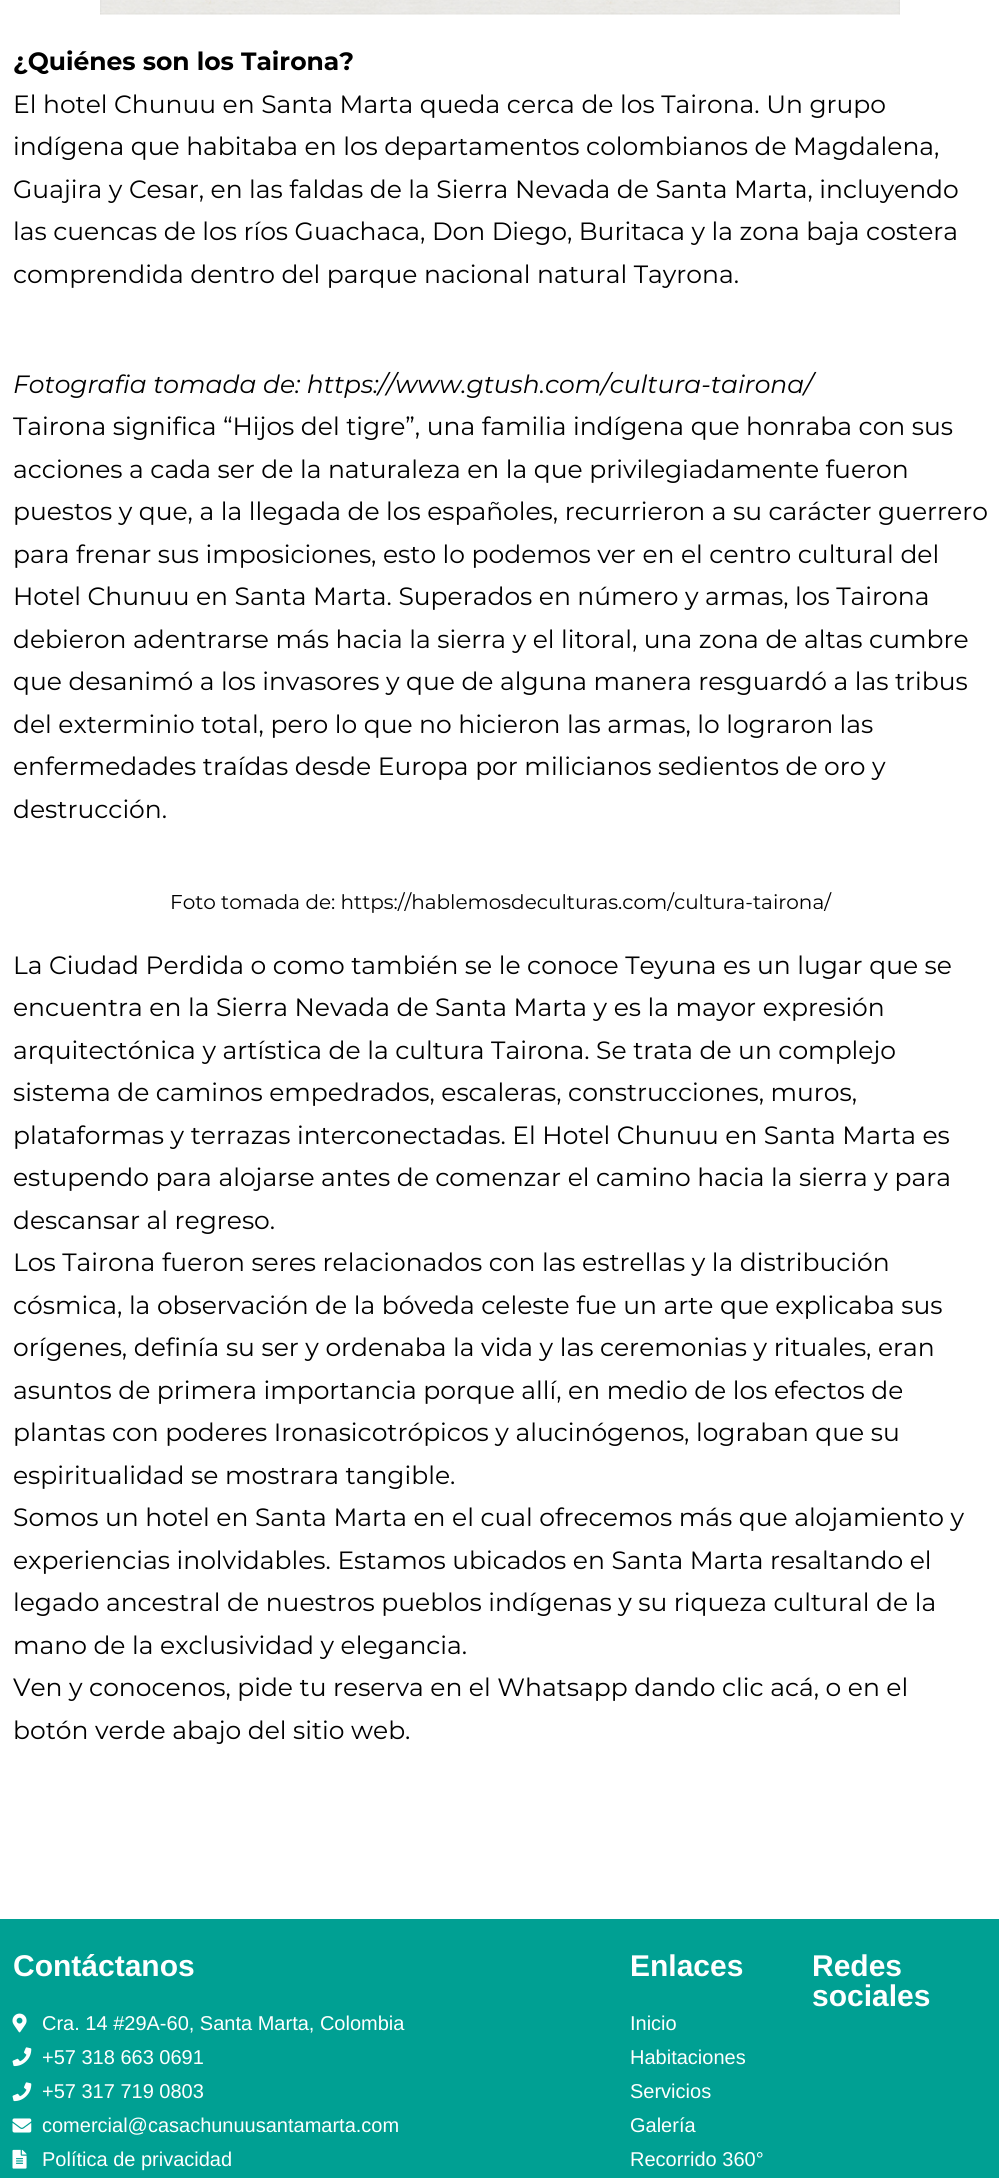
#include <cairo.h>
#include <math.h>
#include <stddef.h>

typedef struct { const char *family; double size; int italic, bold; unsigned color; } style_t;
static cairo_t *ctx;

static void ink(unsigned color) {
    cairo_set_source_rgb(ctx, (color >> 16) / 255.0, (color >> 8 & 255) / 255.0, (color & 255) / 255.0);
}

static void write(double x, double y, const char *s, const style_t *st) {
    cairo_select_font_face(ctx, st->family, st->italic ? CAIRO_FONT_SLANT_ITALIC : CAIRO_FONT_SLANT_NORMAL,
        st->bold ? CAIRO_FONT_WEIGHT_BOLD : CAIRO_FONT_WEIGHT_NORMAL);
    cairo_set_font_size(ctx, st->size);
    ink(st->color);
    cairo_move_to(ctx, x, y);
    cairo_show_text(ctx, s);
}

static void block(double x, double y, double w, double h, unsigned color) {
    ink(color);
    cairo_rectangle(ctx, x, y, w, h);
    cairo_fill(ctx);
}

static void paste(const char *path, double x, double y, double w, double h) {
    cairo_surface_t *image = cairo_image_surface_create_from_png(path);
    cairo_save(ctx);
    cairo_set_source_surface(ctx, image, x, y);
    cairo_rectangle(ctx, x, y, w, h);
    cairo_fill(ctx);
    cairo_restore(ctx);
    cairo_surface_destroy(image);
}

static const style_t s1 = {"Montserrat", 25, 0, 1, 0x000000};
static const style_t s2 = {"Montserrat", 25, 0, 0, 0x000000};
static const style_t s3 = {"Montserrat", 25, 1, 0, 0x000000};
static const style_t s4 = {"Montserrat", 20, 0, 0, 0x000000};
static const style_t s5 = {"Liberation Sans", 30, 0, 1, 0xffffff};
static const style_t s6 = {"Liberation Sans", 20, 0, 0, 0xffffff};

int main(void) {
    cairo_surface_t *surface = cairo_image_surface_create(CAIRO_FORMAT_RGB24, 999, 2178);
    ctx = cairo_create(surface);
    cairo_font_options_t *options = cairo_font_options_create();
    cairo_font_options_set_hint_metrics(options, CAIRO_HINT_METRICS_OFF);
    cairo_font_options_set_hint_style(options, CAIRO_HINT_STYLE_NONE);
    cairo_set_font_options(ctx, options);
    cairo_set_miter_limit(ctx, 4);
    ink(0xffffff);
    cairo_paint(ctx);
    paste("pic1.png", 100, 0, 800, 15);
    write(13, 70, "¿Quiénes son los Tairona?", &s1);
    write(13, 113, "El hotel Chunuu en Santa Marta queda cerca de los Tairona. Un grupo", &s2);
    write(13, 155, "indígena que habitaba en los departamentos colombianos de Magdalena,", &s2);
    write(13, 198, "Guajira y Cesar, en las faldas de la Sierra Nevada de Santa Marta, incluyendo", &s2);
    write(13, 240, "las cuencas de los ríos Guachaca, Don Diego, Buritaca y la zona baja costera", &s2);
    write(13, 283, "comprendida dentro del parque nacional natural Tayrona.", &s2);
    write(13, 393, "Fotografia tomada de: https://www.gtush.com/cultura-tairona/", &s3);
    write(13, 435, "Tairona significa “Hijos del tigre”, una familia indígena que honraba con sus", &s2);
    write(13, 478, "acciones a cada ser de la naturaleza en la que privilegiadamente fueron", &s2);
    write(13, 520, "puestos y que, a la llegada de los españoles, recurrieron a su carácter guerrero", &s2);
    write(13, 563, "para frenar sus imposiciones, esto lo podemos ver en el centro cultural del", &s2);
    write(13, 605, "Hotel Chunuu en Santa Marta. Superados en número y armas, los Tairona", &s2);
    write(13, 648, "debieron adentrarse más hacia la sierra y el litoral, una zona de altas cumbre", &s2);
    write(13, 690, "que desanimó a los invasores y que de alguna manera resguardó a las tribus", &s2);
    write(13, 733, "del exterminio total, pero lo que no hicieron las armas, lo lograron las", &s2);
    write(13, 775, "enfermedades traídas desde Europa por milicianos sedientos de oro y", &s2);
    write(13, 818, "destrucción.", &s2);
    write(170, 909, "Foto tomada de: https://hablemosdeculturas.com/cultura-tairona/", &s4);
    write(13, 974, "La Ciudad Perdida o como también se le conoce Teyuna es un lugar que se", &s2);
    write(13, 1016, "encuentra en la Sierra Nevada de Santa Marta y es la mayor expresión", &s2);
    write(13, 1059, "arquitectónica y artística de la cultura Tairona. Se trata de un complejo", &s2);
    write(13, 1101, "sistema de caminos empedrados, escaleras, construcciones, muros,", &s2);
    write(13, 1144, "plataformas y terrazas interconectadas. El Hotel Chunuu en Santa Marta es", &s2);
    write(13, 1186, "estupendo para alojarse antes de comenzar el camino hacia la sierra y para", &s2);
    write(13, 1229, "descansar al regreso.", &s2);
    write(13, 1271, "Los Tairona fueron seres relacionados con las estrellas y la distribución", &s2);
    write(13, 1314, "cósmica, la observación de la bóveda celeste fue un arte que explicaba sus", &s2);
    write(13, 1356, "orígenes, definía su ser y ordenaba la vida y las ceremonias y rituales, eran", &s2);
    write(13, 1399, "asuntos de primera importancia porque allí, en medio de los efectos de", &s2);
    write(13, 1441, "plantas con poderes Ironasicotrópicos y alucinógenos, lograban que su", &s2);
    write(13, 1484, "espiritualidad se mostrara tangible.", &s2);
    write(13, 1526, "Somos un hotel en Santa Marta en el cual ofrecemos más que alojamiento y", &s2);
    write(13, 1569, "experiencias inolvidables. Estamos ubicados en Santa Marta resaltando el", &s2);
    write(13, 1611, "legado ancestral de nuestros pueblos indígenas y su riqueza cultural de la", &s2);
    write(13, 1654, "mano de la exclusividad y elegancia.", &s2);
    write(13, 1696, "Ven y conocenos, pide tu reserva en el Whatsapp dando clic acá, o en el", &s2);
    write(13, 1739, "botón verde abajo del sitio web.", &s2);
    block(0, 1919, 999, 259, 0x00a093);
    write(13, 1976, "Contáctanos", &s5);
    paste("pic2.png", 12, 2013, 15, 20);
    write(42, 2030, "Cra. 14 #29A-60, Santa Marta, Colombia", &s6);
    paste("pic3.png", 12, 2047, 20, 20);
    write(42, 2064, "+57 318 663 0691", &s6);
    paste("pic3.png", 12, 2082, 20, 20);
    write(42, 2098, "+57 317 719 0803", &s6);
    paste("pic4.png", 12, 2118, 20, 15);
    write(42, 2132, "comercial@casachunuusantamarta.com", &s6);
    paste("pic5.png", 12, 2149, 15, 20);
    write(42, 2166, "Política de privacidad", &s6);
    write(630, 1976, "Enlaces", &s5);
    write(630, 2030, "Inicio", &s6);
    write(630, 2064, "Habitaciones", &s6);
    write(630, 2098, "Servicios", &s6);
    write(630, 2132, "Galería", &s6);
    write(630, 2166, "Recorrido 360°", &s6);
    write(812, 1976, "Redes", &s5);
    write(812, 2006, "sociales", &s5);
    cairo_surface_write_to_png(surface, "screenshot.png");
    cairo_font_options_destroy(options);
    cairo_destroy(ctx);
    cairo_surface_destroy(surface);
    return 0;
}
